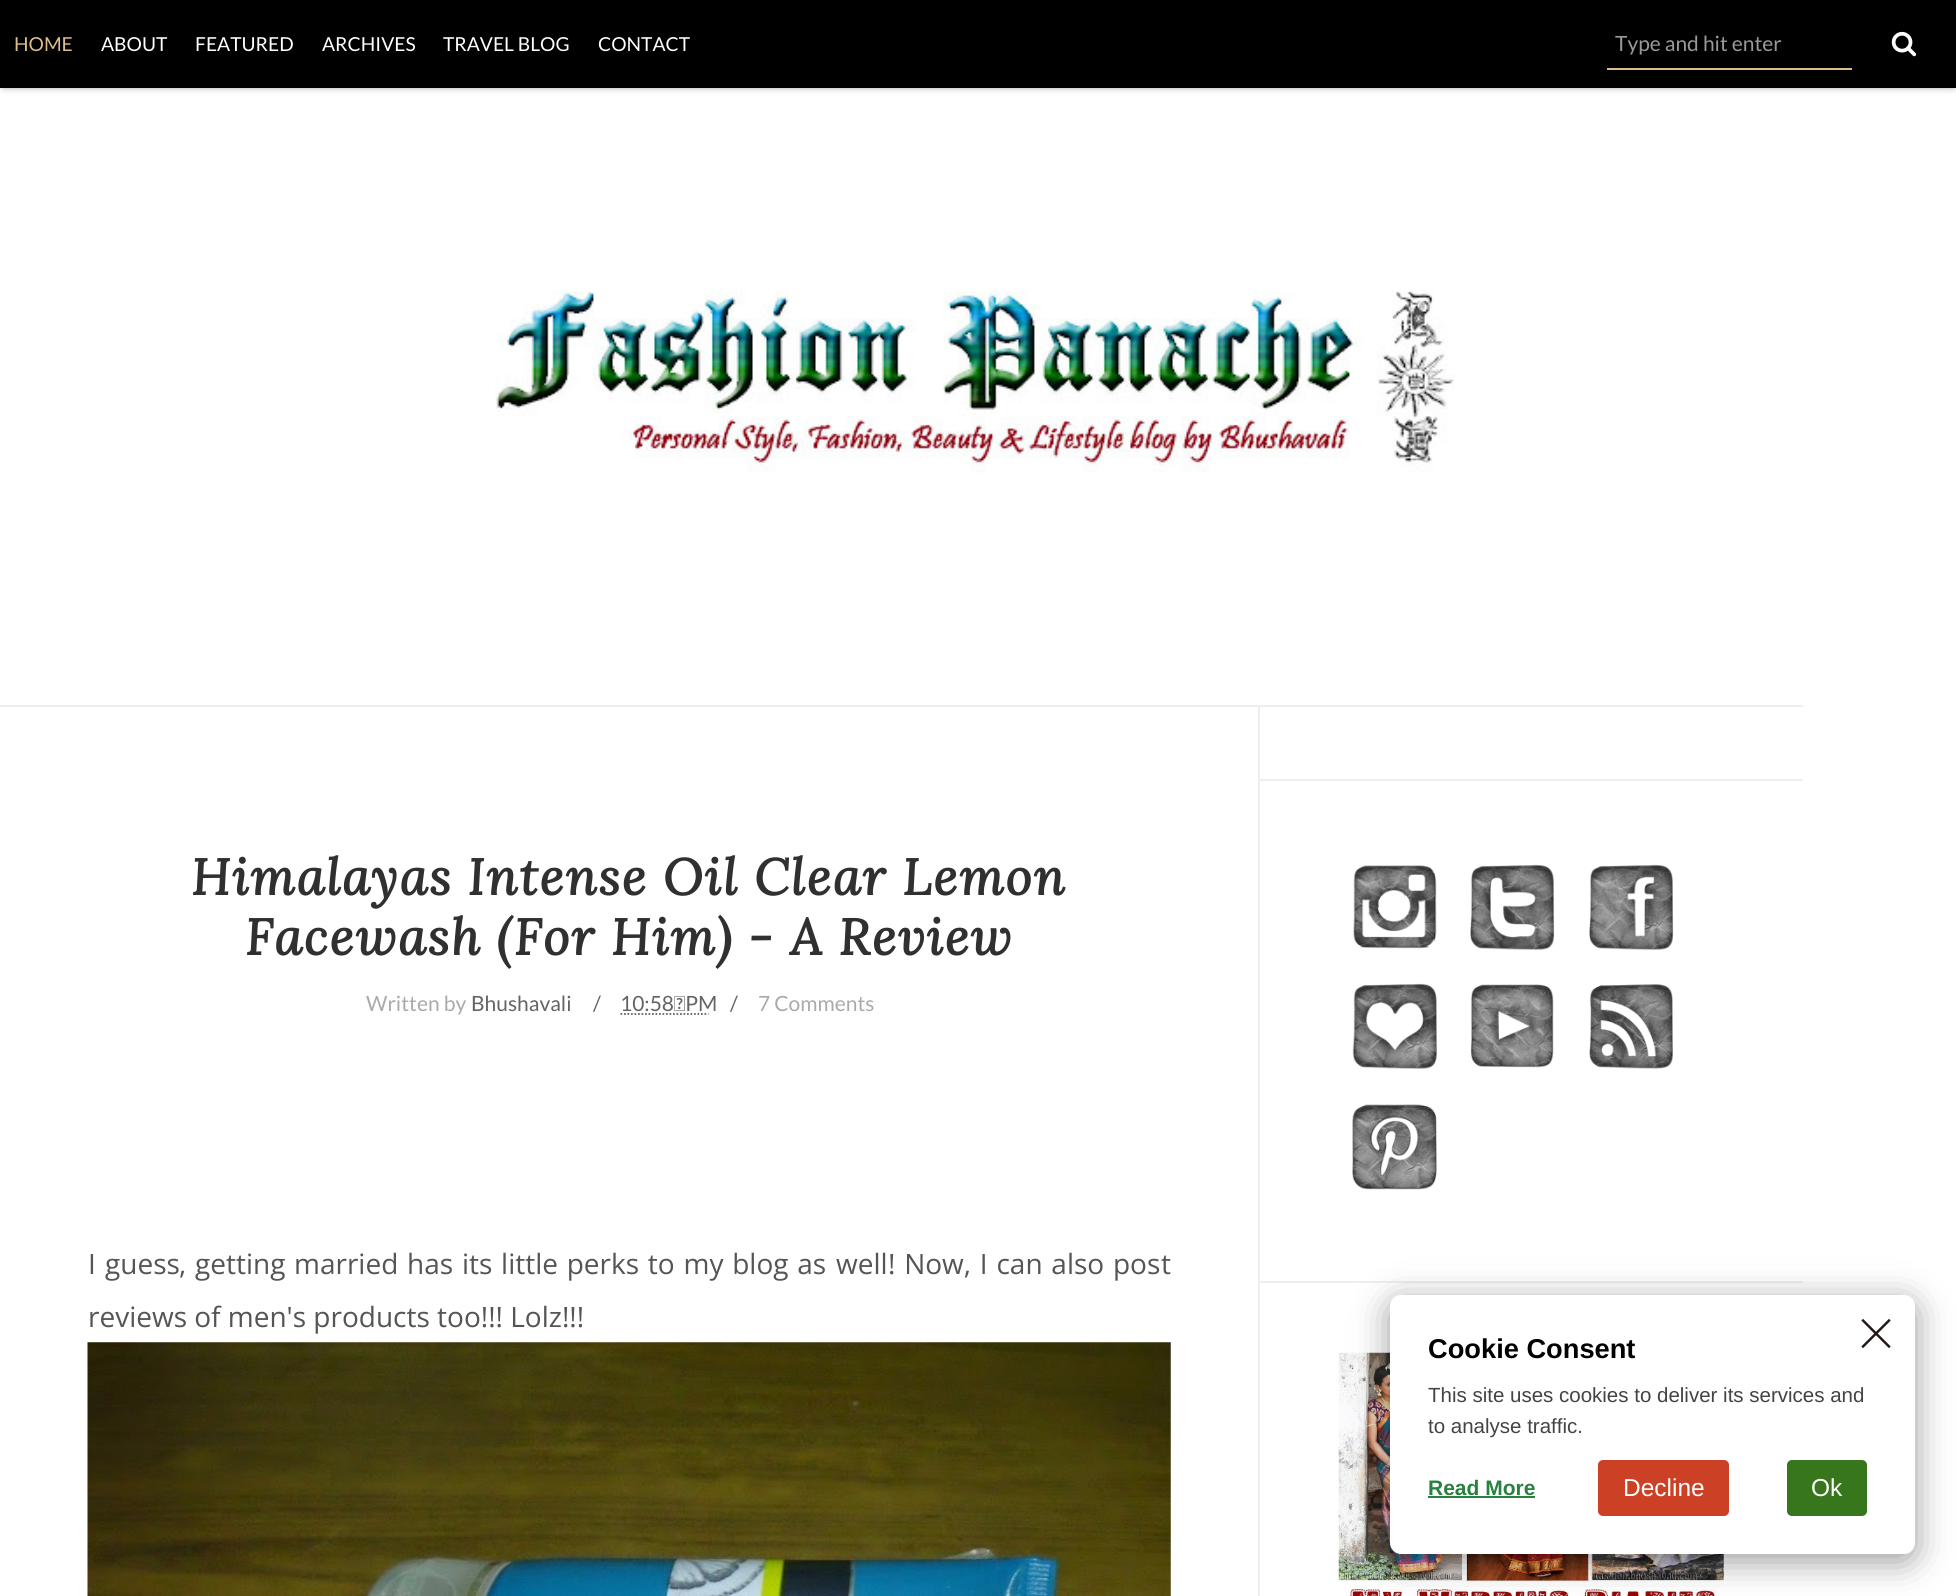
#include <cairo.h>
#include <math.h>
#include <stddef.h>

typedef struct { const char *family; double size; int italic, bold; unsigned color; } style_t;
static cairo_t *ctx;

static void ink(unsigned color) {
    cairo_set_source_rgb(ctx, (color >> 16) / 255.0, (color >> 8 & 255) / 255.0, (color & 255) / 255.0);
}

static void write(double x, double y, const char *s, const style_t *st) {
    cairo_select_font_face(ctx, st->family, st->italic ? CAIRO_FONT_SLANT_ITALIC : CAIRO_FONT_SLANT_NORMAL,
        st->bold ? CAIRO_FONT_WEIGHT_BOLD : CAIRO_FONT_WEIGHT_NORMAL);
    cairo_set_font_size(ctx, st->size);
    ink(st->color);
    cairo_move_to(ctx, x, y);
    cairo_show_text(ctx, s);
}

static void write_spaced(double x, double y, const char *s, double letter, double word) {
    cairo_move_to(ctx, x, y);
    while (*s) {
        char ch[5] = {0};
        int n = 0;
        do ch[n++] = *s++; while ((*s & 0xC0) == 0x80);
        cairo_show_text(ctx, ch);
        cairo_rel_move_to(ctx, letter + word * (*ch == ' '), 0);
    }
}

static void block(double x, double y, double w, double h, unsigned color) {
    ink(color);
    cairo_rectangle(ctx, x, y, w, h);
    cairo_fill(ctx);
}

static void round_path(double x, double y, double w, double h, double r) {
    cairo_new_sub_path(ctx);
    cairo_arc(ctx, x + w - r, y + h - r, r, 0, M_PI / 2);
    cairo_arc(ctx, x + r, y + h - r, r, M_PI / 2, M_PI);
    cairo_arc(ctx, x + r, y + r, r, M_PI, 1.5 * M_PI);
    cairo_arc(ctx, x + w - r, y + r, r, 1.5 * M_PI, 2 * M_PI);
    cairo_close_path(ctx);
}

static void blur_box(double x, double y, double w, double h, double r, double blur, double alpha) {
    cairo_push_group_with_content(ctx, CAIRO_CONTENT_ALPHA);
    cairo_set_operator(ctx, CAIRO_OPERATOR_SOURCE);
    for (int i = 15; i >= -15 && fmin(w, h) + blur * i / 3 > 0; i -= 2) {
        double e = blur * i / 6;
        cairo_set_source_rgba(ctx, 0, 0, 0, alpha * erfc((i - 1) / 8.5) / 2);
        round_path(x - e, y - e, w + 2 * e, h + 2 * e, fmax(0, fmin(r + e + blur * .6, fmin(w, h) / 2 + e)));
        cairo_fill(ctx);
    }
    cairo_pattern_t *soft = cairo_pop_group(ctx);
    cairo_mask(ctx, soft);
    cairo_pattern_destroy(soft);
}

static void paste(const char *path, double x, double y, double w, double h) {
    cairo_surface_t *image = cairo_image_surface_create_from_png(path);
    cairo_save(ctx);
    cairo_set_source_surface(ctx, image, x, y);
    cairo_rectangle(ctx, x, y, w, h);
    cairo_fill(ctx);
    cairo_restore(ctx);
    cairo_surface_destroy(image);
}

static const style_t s1 = {"Lato", 19.25, 0, 0, 0xddbe86};
static const style_t s2 = {"Lato", 19.25, 0, 0, 0xffffff};
static const style_t s3 = {"Lato", 21, 0, 0, 0x999999};
static const style_t s4 = {"Lato", 21, 0, 0, 0xaaaaaa};
static const style_t s5 = {"Lato", 21, 0, 0, 0x646464};
static const style_t s6 = {"Open Sans", 28, 0, 0, 0x555555};
static const style_t s7 = {"Liberation Sans", 27.25, 0, 1, 0x000000};
static const style_t s8 = {"Liberation Sans", 20.5, 0, 0, 0x434343};
static const style_t s9 = {"Liberation Sans", 21, 0, 1, 0x28813f};
static const style_t s10 = {"Liberation Sans", 24.5, 0, 0, 0xffffff};

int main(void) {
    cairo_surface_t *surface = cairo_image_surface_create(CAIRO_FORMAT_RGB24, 1956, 1596);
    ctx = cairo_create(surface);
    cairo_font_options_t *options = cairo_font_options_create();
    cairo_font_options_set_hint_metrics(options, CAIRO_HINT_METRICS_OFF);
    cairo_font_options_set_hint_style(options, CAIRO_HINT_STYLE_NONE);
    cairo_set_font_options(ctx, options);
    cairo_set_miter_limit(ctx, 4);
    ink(0xffffff);
    cairo_paint(ctx);
    ink(0x000000);
    blur_box(4, 4, 1949, 80, 0, 4.5, 1);
    block(0, 0, 1956, 88, 0x000000);
    write(14, 51, "HOME", &s1);
    write(101, 51, "ABOUT", &s2);
    write(195, 51, "FEATURED", &s2);
    write(322, 51, "ARCHIVES", &s2);
    write(443, 51, "TRAVEL BLOG", &s2);
    write(598, 51, "CONTACT", &s2);
    block(1607, 68, 245, 2, 0xddbe86);
    write(1615, 51, "Type and hit enter", &s3);
    paste("pic1.png", 1891, 31, 26, 26);
    paste("pic2.png", 495, 290, 960, 183);
    block(0, 705, 1803, 2, 0xeeeeee);
    block(1260, 779, 543, 2, 0xeeeeee);
    paste("pic3.png", 1353, 865, 84, 84);
    paste("pic4.png", 1470, 864, 85, 86);
    paste("pic5.png", 1589, 864, 85, 86);
    paste("pic6.png", 1352, 983, 86, 86);
    paste("pic7.png", 1470, 984, 84, 84);
    paste("pic8.png", 1589, 984, 84, 85);
    paste("pic9.png", 1352, 1104, 85, 86);
    block(1260, 1281, 543, 2, 0xeeeeee);
    paste("pic10.png", 1338, 1352, 386, 244);
    block(1258, 705, 2, 891, 0xeeeeee);
    cairo_select_font_face(ctx, "Lora", CAIRO_FONT_SLANT_ITALIC, CAIRO_FONT_WEIGHT_BOLD);
    cairo_set_font_size(ctx, 50.75);
    ink(0x303030);
    write_spaced(191, 895, "Himalayas Intense Oil Clear Lemon", 1.75, 0);
    write_spaced(245, 955, "Facewash (For Him) - A Review", 1.75, 0);
    write(366, 1011, "Written by", &s4);
    write(471, 1011, "Bhushavali", &s5);
    write(593, 1011, "/", &s5);
    write(620, 1011, "10:58 PM", &s5);
    cairo_new_path(ctx);
    cairo_move_to(ctx, 620.5, 1014);
    cairo_line_to(ctx, 708.5, 1014);
    cairo_set_line_width(ctx, 1.8);
    cairo_set_dash(ctx, (double[]){1.75, 1.75}, 2, 0);
    cairo_stroke(ctx);
    write(730, 1011, "/", &s5);
    write(758, 1011, "7 Comments", &s4);
    cairo_select_font_face(ctx, "Open Sans", CAIRO_FONT_SLANT_NORMAL, CAIRO_FONT_WEIGHT_NORMAL);
    cairo_set_font_size(ctx, 28);
    ink(0x555555);
    write_spaced(88, 1274, "I guess", 0, 2);
    write_spaced(179, 1274, ", getting", 0, 1.5);
    write_spaced(294, 1274, "married has its little perks to my blog as", 0, 1.5);
    write(836, 1274, "well", &s6);
    write_spaced(888, 1274, "! Now, I can also pos", 0, 1.5);
    write(1161, 1274, "t", &s6);
    write(88, 1327, "reviews of men's products too!!! Lolz!!!", &s6);
    paste("pic11.png", 87, 1342, 1084, 254);
    ink(0x000000);
    blur_box(1390, 1302, 525, 259, 11, 17.5, 0.4);
    ink(0xffffff);
    round_path(1390, 1295, 525, 259, 11);
    cairo_fill(ctx);
    write(1428, 1358, "Cookie Consent", &s7);
    paste("pic12.png", 1861, 1318, 30, 31);
    write(1428, 1402, "This site uses cookies to deliver its services and", &s8);
    write(1428, 1433, "to analyse traffic.", &s8);
    write(1428, 1495, "Read More", &s9);
    block(1428, 1496, 107, 2, 0x28813f);
    ink(0xcc4125);
    round_path(1598, 1460, 131, 56, 5);
    cairo_fill(ctx);
    write(1623, 1496, "Decline", &s10);
    ink(0x38761d);
    round_path(1787, 1460, 80, 56, 5);
    cairo_fill(ctx);
    write(1811, 1496, "Ok", &s10);
    cairo_surface_write_to_png(surface, "screenshot.png");
    cairo_font_options_destroy(options);
    cairo_destroy(ctx);
    cairo_surface_destroy(surface);
    return 0;
}
